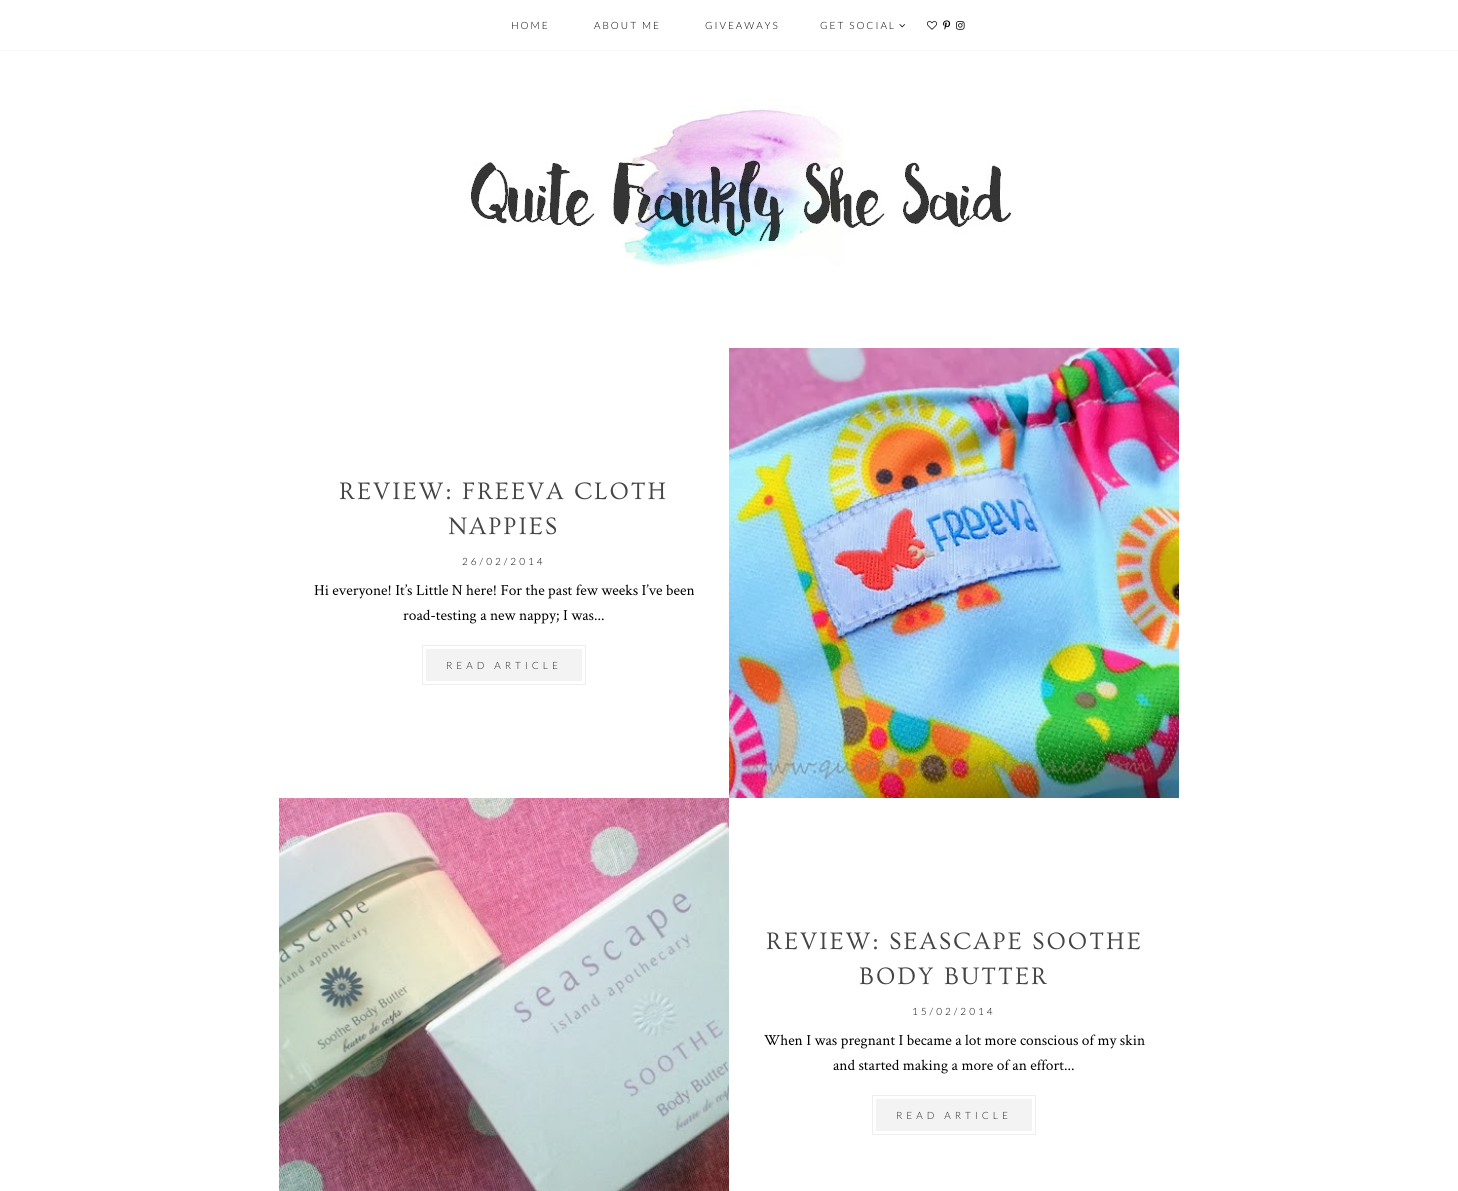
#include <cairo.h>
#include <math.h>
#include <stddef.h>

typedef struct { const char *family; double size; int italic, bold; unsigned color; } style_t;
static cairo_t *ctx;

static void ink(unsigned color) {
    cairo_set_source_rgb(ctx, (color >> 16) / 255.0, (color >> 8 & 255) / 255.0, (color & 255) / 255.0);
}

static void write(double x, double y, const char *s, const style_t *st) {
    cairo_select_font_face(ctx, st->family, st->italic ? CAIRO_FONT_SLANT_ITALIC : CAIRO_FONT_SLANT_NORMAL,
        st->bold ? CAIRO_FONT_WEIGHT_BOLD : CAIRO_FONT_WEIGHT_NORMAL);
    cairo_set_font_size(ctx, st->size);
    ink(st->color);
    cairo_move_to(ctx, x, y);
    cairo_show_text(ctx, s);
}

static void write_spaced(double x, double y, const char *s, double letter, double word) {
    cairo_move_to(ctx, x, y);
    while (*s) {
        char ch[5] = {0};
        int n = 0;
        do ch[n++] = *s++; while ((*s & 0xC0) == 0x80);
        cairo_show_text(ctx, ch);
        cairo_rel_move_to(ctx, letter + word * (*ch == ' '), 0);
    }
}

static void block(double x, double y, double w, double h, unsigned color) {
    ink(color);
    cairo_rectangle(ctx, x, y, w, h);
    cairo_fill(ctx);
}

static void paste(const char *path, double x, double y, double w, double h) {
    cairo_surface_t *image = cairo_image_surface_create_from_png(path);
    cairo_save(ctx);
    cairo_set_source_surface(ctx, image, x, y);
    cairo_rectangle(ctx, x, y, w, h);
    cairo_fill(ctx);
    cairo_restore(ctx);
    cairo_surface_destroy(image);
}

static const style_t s1 = {"Crimson Text", 15.4, 0, 0, 0x000000};

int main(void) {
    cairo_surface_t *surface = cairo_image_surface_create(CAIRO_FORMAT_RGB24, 1458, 1191);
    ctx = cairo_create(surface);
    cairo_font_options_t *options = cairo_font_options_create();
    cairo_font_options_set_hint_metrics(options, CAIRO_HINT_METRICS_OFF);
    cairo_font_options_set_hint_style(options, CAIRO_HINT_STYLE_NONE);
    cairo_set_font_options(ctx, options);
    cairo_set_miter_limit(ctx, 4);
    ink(0xffffff);
    cairo_paint(ctx);
    block(0, 50, 1458, 1, 0xf9f9f9);
    cairo_select_font_face(ctx, "Lato Light", CAIRO_FONT_SLANT_NORMAL, CAIRO_FONT_WEIGHT_NORMAL);
    cairo_set_font_size(ctx, 10);
    ink(0x000000);
    write_spaced(511, 29, "HOME", 2, 0);
    write_spaced(594, 29, "ABOUT ME", 2, 0);
    write_spaced(705, 29, "GIVEAWAYS", 2, 0);
    write_spaced(820, 29, "GET SOCIAL", 2, 0);
    paste("pic1.png", 899, 24, 6, 4);
    paste("pic2.png", 927, 21, 10, 9);
    paste("pic3.png", 943, 20, 8, 10);
    paste("pic4.png", 956, 21, 9, 9);
    paste("pic5.png", 465, 106, 551, 161);
    cairo_select_font_face(ctx, "Ovo", CAIRO_FONT_SLANT_NORMAL, CAIRO_FONT_WEIGHT_NORMAL);
    cairo_set_font_size(ctx, 25);
    ink(0x444444);
    write_spaced(339, 499, "REVIEW: FREEVA CLOTH", 2, 0);
    write_spaced(448, 534, "NAPPIES", 2, 0);
    cairo_select_font_face(ctx, "Lato Light", CAIRO_FONT_SLANT_NORMAL, CAIRO_FONT_WEIGHT_NORMAL);
    cairo_set_font_size(ctx, 10);
    ink(0x000000);
    write_spaced(462, 565, "26/02/2014", 3, 0);
    write(314, 595, "Hi everyone! It’s Little N here! For the past few weeks I’ve been", &s1);
    write(403, 620, "road-testing a new nappy; I was...", &s1);
    cairo_rectangle(ctx, 422.5, 645.5, 163, 39);
    ink(0xeeeeee);
    cairo_set_line_width(ctx, 1);
    cairo_stroke(ctx);
    block(426, 649, 156, 32, 0xf3f3f3);
    cairo_select_font_face(ctx, "Lato Light", CAIRO_FONT_SLANT_NORMAL, CAIRO_FONT_WEIGHT_NORMAL);
    cairo_set_font_size(ctx, 10);
    ink(0x222222);
    write_spaced(446, 669, "READ ARTICLE", 4, 0);
    paste("pic6.png", 729, 348, 450, 450);
    paste("pic7.png", 279, 798, 450, 393);
    cairo_select_font_face(ctx, "Ovo", CAIRO_FONT_SLANT_NORMAL, CAIRO_FONT_WEIGHT_NORMAL);
    cairo_set_font_size(ctx, 25);
    ink(0x444444);
    write_spaced(766, 949, "REVIEW: SEASCAPE SOOTHE", 2, 0);
    write_spaced(859, 984, "BODY BUTTER", 2, 0);
    cairo_select_font_face(ctx, "Lato Light", CAIRO_FONT_SLANT_NORMAL, CAIRO_FONT_WEIGHT_NORMAL);
    cairo_set_font_size(ctx, 10);
    ink(0x000000);
    write_spaced(912, 1015, "15/02/2014", 3, 0);
    write(764, 1045, "When I was pregnant I became a lot more conscious of my skin", &s1);
    write(833, 1070, "and started making a more of an effort...", &s1);
    cairo_rectangle(ctx, 872.5, 1095.5, 163, 39);
    ink(0xeeeeee);
    cairo_stroke(ctx);
    block(876, 1099, 156, 32, 0xf3f3f3);
    cairo_select_font_face(ctx, "Lato Light", CAIRO_FONT_SLANT_NORMAL, CAIRO_FONT_WEIGHT_NORMAL);
    cairo_set_font_size(ctx, 10);
    ink(0x222222);
    write_spaced(896, 1119, "READ ARTICLE", 4, 0);
    cairo_surface_write_to_png(surface, "screenshot.png");
    cairo_font_options_destroy(options);
    cairo_destroy(ctx);
    cairo_surface_destroy(surface);
    return 0;
}
